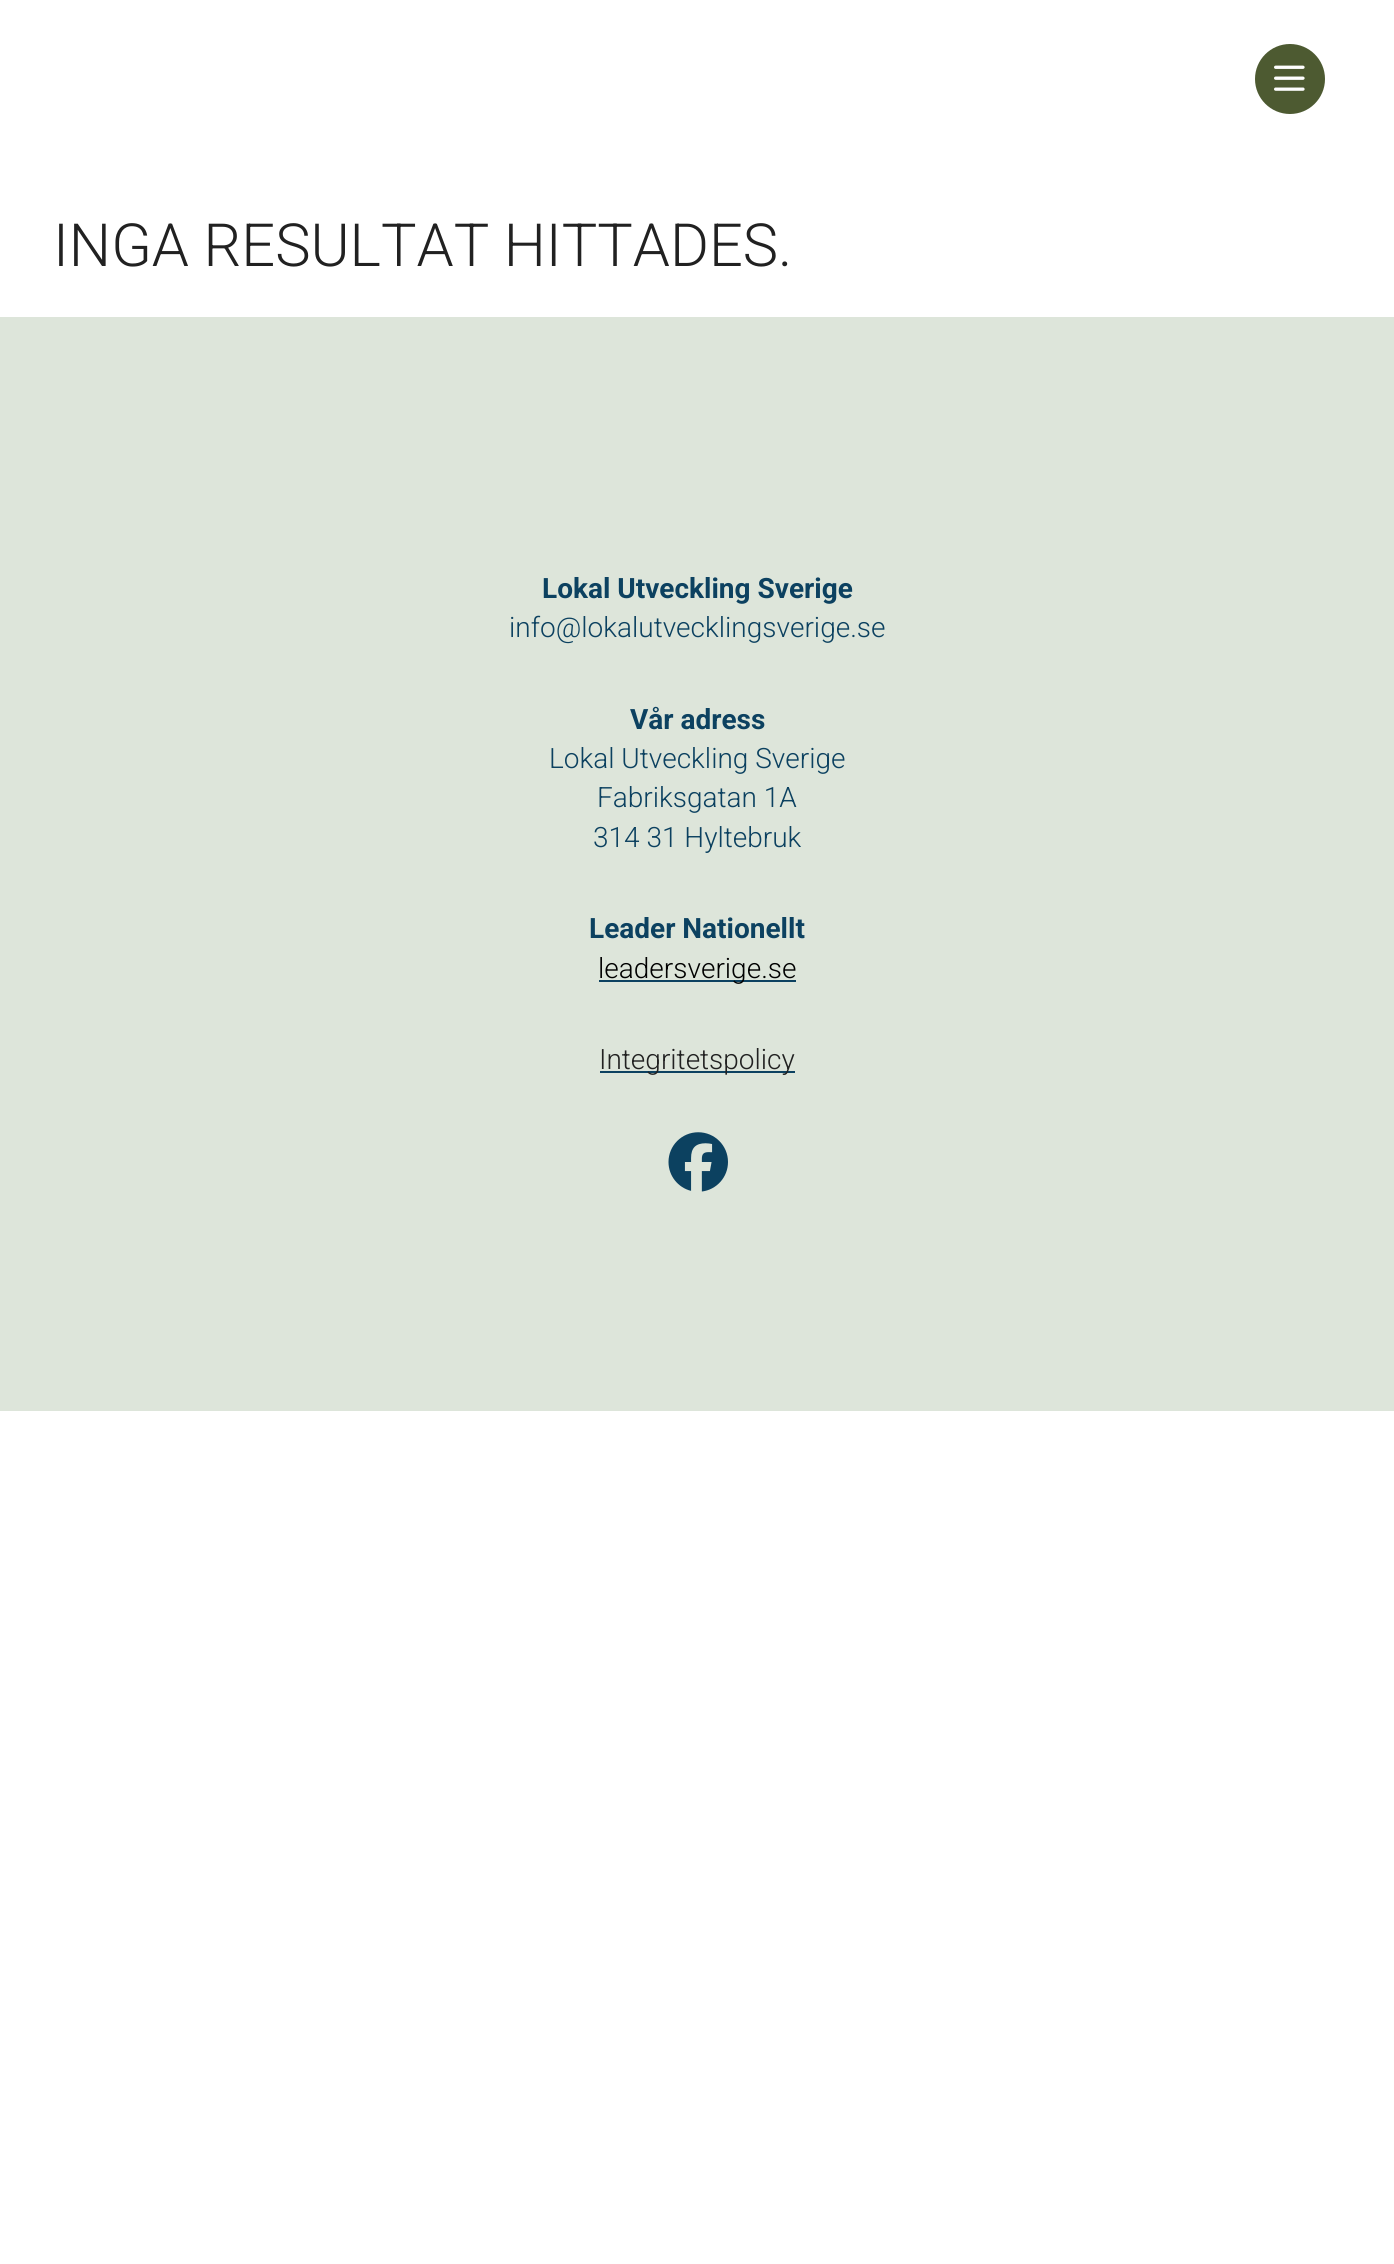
#include <cairo.h>
#include <math.h>
#include <stddef.h>

typedef struct { const char *family; double size; int italic, bold; unsigned color; } style_t;
static cairo_t *ctx;

static void ink(unsigned color) {
    cairo_set_source_rgb(ctx, (color >> 16) / 255.0, (color >> 8 & 255) / 255.0, (color & 255) / 255.0);
}

static void write(double x, double y, const char *s, const style_t *st) {
    cairo_select_font_face(ctx, st->family, st->italic ? CAIRO_FONT_SLANT_ITALIC : CAIRO_FONT_SLANT_NORMAL,
        st->bold ? CAIRO_FONT_WEIGHT_BOLD : CAIRO_FONT_WEIGHT_NORMAL);
    cairo_set_font_size(ctx, st->size);
    ink(st->color);
    cairo_move_to(ctx, x, y);
    cairo_show_text(ctx, s);
}

static void block(double x, double y, double w, double h, unsigned color) {
    ink(color);
    cairo_rectangle(ctx, x, y, w, h);
    cairo_fill(ctx);
}

static void paste(const char *path, double x, double y, double w, double h) {
    cairo_surface_t *image = cairo_image_surface_create_from_png(path);
    cairo_save(ctx);
    cairo_set_source_surface(ctx, image, x, y);
    cairo_rectangle(ctx, x, y, w, h);
    cairo_fill(ctx);
    cairo_restore(ctx);
    cairo_surface_destroy(image);
}

static const style_t s1 = {"Roboto Light", 59.5, 0, 0, 0x212121};
static const style_t s2 = {"Roboto", 28, 0, 1, 0x0c4160};
static const style_t s3 = {"Roboto Light", 28, 0, 0, 0x0c4160};
static const style_t s4 = {"Roboto Light", 28, 0, 0, 0x000000};
static const style_t s5 = {"Roboto Light", 28, 0, 0, 0x212121};

int main(void) {
    cairo_surface_t *surface = cairo_image_surface_create(CAIRO_FORMAT_RGB24, 1394, 2264);
    ctx = cairo_create(surface);
    cairo_font_options_t *options = cairo_font_options_create();
    cairo_font_options_set_hint_metrics(options, CAIRO_HINT_METRICS_OFF);
    cairo_font_options_set_hint_style(options, CAIRO_HINT_STYLE_NONE);
    cairo_set_font_options(ctx, options);
    cairo_set_miter_limit(ctx, 4);
    ink(0xffffff);
    cairo_paint(ctx);
    ink(0x4d5a31);
    cairo_arc(ctx, 1290, 79, 35, 0, 2 * M_PI);
    cairo_fill(ctx);
    paste("pic1.png", 1274, 65, 31, 26);
    write(53, 266, "INGA RESULTAT HITTADES.", &s1);
    block(0, 317, 1394, 1094, 0xdde5da);
    write(542, 598, "Lokal Utveckling Sverige", &s2);
    write(509, 637, "info@lokalutvecklingsverige.se", &s3);
    write(630, 729, "Vår adress", &s2);
    write(549, 768, "Lokal Utveckling Sverige", &s3);
    write(597, 807, "Fabriksgatan 1A", &s3);
    write(593, 847, "314 31 Hyltebruk", &s3);
    write(589, 938, "Leader Nationellt", &s2);
    block(599, 980, 197, 2, 0x0c4160);
    write(598, 978, "leadersverige.se", &s4);
    block(600, 1071, 195, 2, 0x0c4160);
    write(599, 1069, "Integritetspolicy", &s5);
    paste("pic2.png", 668, 1132, 60, 60);
    cairo_surface_write_to_png(surface, "screenshot.png");
    cairo_font_options_destroy(options);
    cairo_destroy(ctx);
    cairo_surface_destroy(surface);
    return 0;
}
